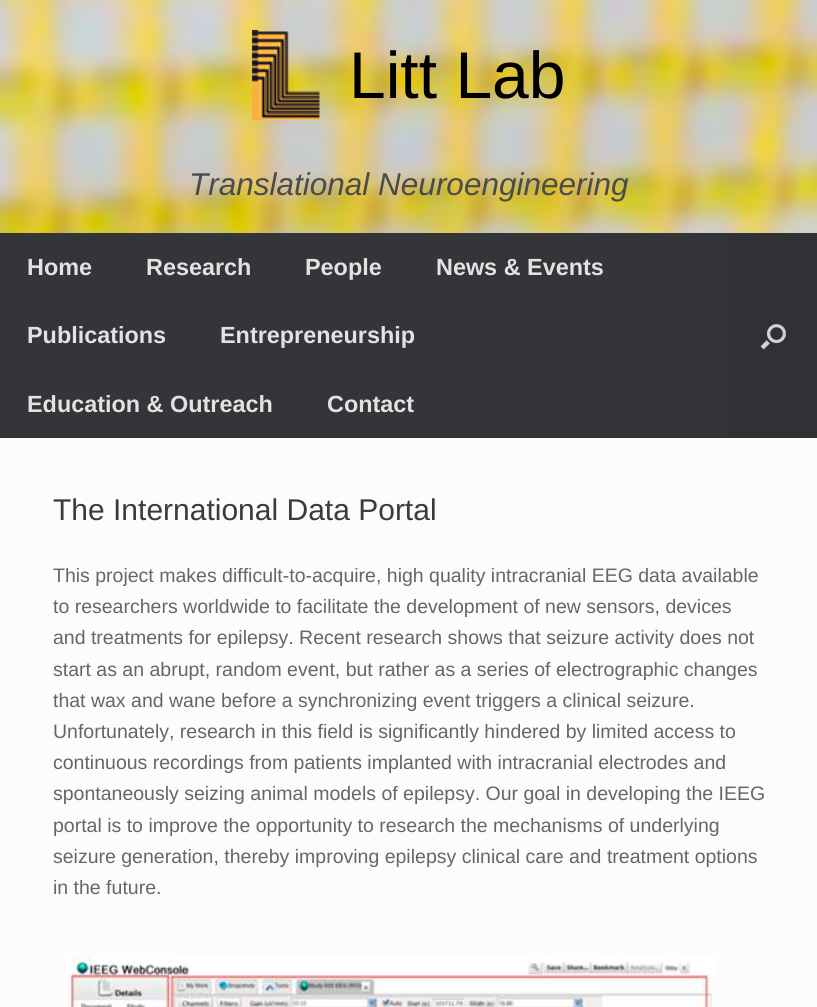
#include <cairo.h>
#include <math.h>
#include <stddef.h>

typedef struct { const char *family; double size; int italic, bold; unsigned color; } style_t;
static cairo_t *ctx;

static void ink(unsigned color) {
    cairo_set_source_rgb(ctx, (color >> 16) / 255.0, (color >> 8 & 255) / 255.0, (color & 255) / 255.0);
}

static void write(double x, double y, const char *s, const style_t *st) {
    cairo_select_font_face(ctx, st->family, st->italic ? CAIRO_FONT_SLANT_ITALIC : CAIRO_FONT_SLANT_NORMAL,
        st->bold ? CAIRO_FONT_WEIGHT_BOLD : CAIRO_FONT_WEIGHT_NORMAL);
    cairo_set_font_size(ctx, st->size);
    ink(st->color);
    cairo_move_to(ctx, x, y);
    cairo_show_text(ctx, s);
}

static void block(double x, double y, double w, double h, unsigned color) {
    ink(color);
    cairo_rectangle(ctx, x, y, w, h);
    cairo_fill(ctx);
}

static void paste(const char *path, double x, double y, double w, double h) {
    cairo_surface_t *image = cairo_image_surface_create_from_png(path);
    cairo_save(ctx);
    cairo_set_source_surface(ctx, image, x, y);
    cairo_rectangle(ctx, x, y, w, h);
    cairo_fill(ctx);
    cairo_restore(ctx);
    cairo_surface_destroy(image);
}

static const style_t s1 = {"Liberation Sans", 66, 0, 0, 0x000000};
static const style_t s2 = {"Liberation Sans", 31.5, 1, 0, 0x4b4b4b};
static const style_t s3 = {"Liberation Sans", 23.4, 0, 1, 0xe2e2e2};
static const style_t s4 = {"Liberation Sans", 30, 0, 0, 0x3b3b3b};
static const style_t s5 = {"Liberation Sans", 19.5, 0, 0, 0x666666};

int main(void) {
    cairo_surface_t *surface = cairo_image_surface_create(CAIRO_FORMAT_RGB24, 817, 1007);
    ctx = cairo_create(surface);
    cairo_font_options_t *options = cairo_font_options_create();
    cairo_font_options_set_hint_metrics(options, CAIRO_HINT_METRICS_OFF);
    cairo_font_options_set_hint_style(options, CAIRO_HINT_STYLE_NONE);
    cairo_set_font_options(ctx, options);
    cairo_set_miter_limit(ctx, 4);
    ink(0xffffff);
    cairo_paint(ctx);
    paste("pic1.png", 0, 0, 817, 233);
    paste("pic2.png", 252, 30, 68, 90);
    write(349, 98, "Litt Lab", &s1);
    write(189, 195, "Translational Neuroengineering", &s2);
    block(0, 233, 729, 205, 0x343538);
    write(27, 275, "Home", &s3);
    write(146, 275, "Research", &s3);
    write(305, 275, "People", &s3);
    write(436, 275, "News & Events", &s3);
    write(27, 343, "Publications", &s3);
    write(220, 343, "Entrepreneurship", &s3);
    write(27, 412, "Education & Outreach", &s3);
    write(327, 412, "Contact", &s3);
    block(729, 233, 88, 205, 0x303134);
    paste("pic3.png", 760, 324, 26, 26);
    block(0, 438, 817, 569, 0xfcfcfc);
    write(53, 520, "The International Data Portal", &s4);
    write(53, 582, "This project makes difficult-to-acquire, high quality intracranial EEG data available", &s5);
    write(53, 613, "to researchers worldwide to facilitate the development of new sensors, devices", &s5);
    write(53, 644, "and treatments for epilepsy. Recent research shows that seizure activity does not", &s5);
    write(53, 676, "start as an abrupt, random event, but rather as a series of electrographic changes", &s5);
    write(53, 707, "that wax and wane before a synchronizing event triggers a clinical seizure.", &s5);
    write(53, 738, "Unfortunately, research in this field is significantly hindered by limited access to", &s5);
    write(53, 769, "continuous recordings from patients implanted with intracranial electrodes and", &s5);
    write(53, 800, "spontaneously seizing animal models of epilepsy. Our goal in developing the IEEG", &s5);
    write(53, 832, "portal is to improve the opportunity to research the mechanisms of underlying", &s5);
    write(53, 863, "seizure generation, thereby improving epilepsy clinical care and treatment options", &s5);
    write(53, 894, "in the future.", &s5);
    paste("pic4.png", 66, 955, 650, 52);
    cairo_surface_write_to_png(surface, "screenshot.png");
    cairo_font_options_destroy(options);
    cairo_destroy(ctx);
    cairo_surface_destroy(surface);
    return 0;
}
